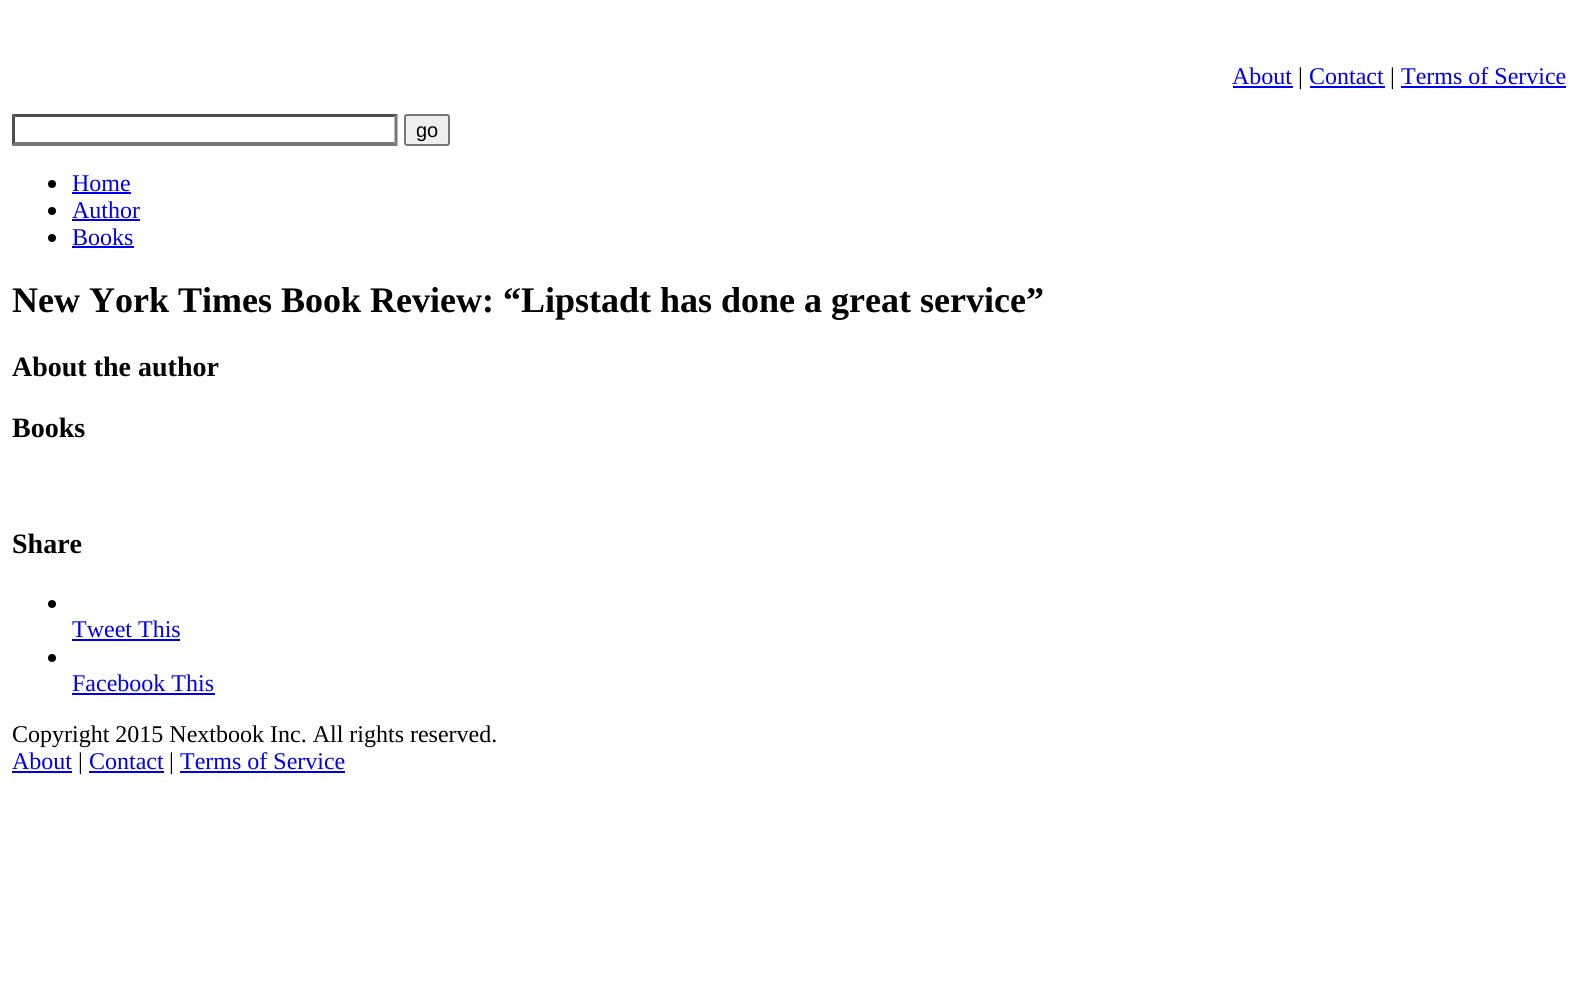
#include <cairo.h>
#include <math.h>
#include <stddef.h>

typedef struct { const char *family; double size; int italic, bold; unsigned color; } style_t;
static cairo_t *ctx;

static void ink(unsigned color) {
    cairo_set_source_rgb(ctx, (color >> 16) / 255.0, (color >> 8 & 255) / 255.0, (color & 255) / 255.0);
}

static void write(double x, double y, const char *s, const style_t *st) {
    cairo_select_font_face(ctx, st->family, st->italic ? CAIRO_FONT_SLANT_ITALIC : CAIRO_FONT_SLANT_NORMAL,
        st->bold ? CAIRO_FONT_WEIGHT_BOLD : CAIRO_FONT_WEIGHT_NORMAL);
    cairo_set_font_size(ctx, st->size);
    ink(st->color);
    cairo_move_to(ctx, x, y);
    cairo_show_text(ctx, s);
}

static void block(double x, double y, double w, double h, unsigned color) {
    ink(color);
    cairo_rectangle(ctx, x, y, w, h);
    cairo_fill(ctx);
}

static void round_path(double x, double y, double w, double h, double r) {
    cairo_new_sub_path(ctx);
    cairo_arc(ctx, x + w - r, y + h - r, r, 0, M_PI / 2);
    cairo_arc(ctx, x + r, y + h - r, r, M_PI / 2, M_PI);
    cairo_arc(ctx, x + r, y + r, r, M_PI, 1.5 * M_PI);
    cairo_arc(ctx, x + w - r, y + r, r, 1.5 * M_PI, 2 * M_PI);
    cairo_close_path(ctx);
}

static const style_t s1 = {"Liberation Serif", 24, 0, 0, 0x0000ee};
static const style_t s2 = {"Liberation Serif", 24, 0, 0, 0x000000};
static const style_t s3 = {"Liberation Sans", 20, 0, 0, 0x000000};
static const style_t s4 = {"Liberation Serif", 36, 0, 1, 0x000000};
static const style_t s5 = {"Liberation Serif", 28, 0, 1, 0x000000};

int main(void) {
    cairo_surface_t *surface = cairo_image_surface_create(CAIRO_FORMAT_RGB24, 1577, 993);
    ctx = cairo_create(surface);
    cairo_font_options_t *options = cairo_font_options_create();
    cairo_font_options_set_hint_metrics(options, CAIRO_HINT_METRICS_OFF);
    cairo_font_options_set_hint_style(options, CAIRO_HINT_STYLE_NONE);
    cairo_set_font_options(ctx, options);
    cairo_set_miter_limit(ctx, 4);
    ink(0xffffff);
    cairo_paint(ctx);
    write(1232, 84, "About", &s1);
    block(1233, 86, 60, 2, 0x0000ee);
    write(1298, 84, "|", &s2);
    write(1309, 84, "Contact", &s1);
    block(1310, 86, 75, 2, 0x0000ee);
    write(1390, 84, "|", &s2);
    write(1401, 84, "Terms of Service", &s1);
    block(1401, 86, 165, 2, 0x0000ee);
    ink(0x4f4f4f);
    cairo_new_path(ctx);
    cairo_move_to(ctx, 12, 114);
    cairo_line_to(ctx, 398, 114);
    cairo_line_to(ctx, 394, 117);
    cairo_line_to(ctx, 15, 117);
    cairo_close_path(ctx);
    cairo_fill(ctx);
    ink(0x767676);
    cairo_new_path(ctx);
    cairo_move_to(ctx, 397.5, 114);
    cairo_line_to(ctx, 397.5, 145.5);
    cairo_line_to(ctx, 394.5, 142.5);
    cairo_line_to(ctx, 394.5, 117);
    cairo_close_path(ctx);
    cairo_fill(ctx);
    cairo_new_path(ctx);
    cairo_move_to(ctx, 398, 146);
    cairo_line_to(ctx, 12, 146);
    cairo_line_to(ctx, 15, 142);
    cairo_line_to(ctx, 394, 142);
    cairo_close_path(ctx);
    cairo_fill(ctx);
    ink(0x4f4f4f);
    cairo_new_path(ctx);
    cairo_move_to(ctx, 12, 145.5);
    cairo_line_to(ctx, 12, 114);
    cairo_line_to(ctx, 15, 117);
    cairo_line_to(ctx, 15, 142.5);
    cairo_close_path(ctx);
    cairo_fill(ctx);
    ink(0xefefef);
    round_path(405, 115, 44, 30, 2);
    cairo_fill_preserve(ctx);
    ink(0x767676);
    cairo_stroke(ctx);
    write(416, 137, "go", &s3);
    cairo_new_path(ctx);
    cairo_arc(ctx, 52, 184, 4, 0, 2 * M_PI);
    cairo_fill(ctx);
    write(72, 191, "Home", &s1);
    block(72, 192, 59, 2, 0x0000ee);
    ink(0x000000);
    cairo_new_path(ctx);
    cairo_arc(ctx, 52, 211, 4, 0, 2 * M_PI);
    cairo_fill(ctx);
    write(72, 218, "Author", &s1);
    block(72, 219, 68, 2, 0x0000ee);
    ink(0x000000);
    cairo_new_path(ctx);
    cairo_arc(ctx, 52, 238, 4, 0, 2 * M_PI);
    cairo_fill(ctx);
    write(72, 245, "Books", &s1);
    block(72, 246, 62, 2, 0x0000ee);
    write(12, 312, "New York Times Book Review: “Lipstadt has done a great service”", &s4);
    write(12, 376, "About the author", &s5);
    write(12, 437, "Books", &s5);
    write(12, 553, "Share", &s5);
    cairo_new_path(ctx);
    cairo_arc(ctx, 52, 604, 4, 0, 2 * M_PI);
    cairo_fill(ctx);
    write(72, 637, "Tweet This", &s1);
    block(72, 639, 108, 2, 0x0000ee);
    ink(0x000000);
    cairo_new_path(ctx);
    cairo_arc(ctx, 52, 658, 4, 0, 2 * M_PI);
    cairo_fill(ctx);
    write(72, 691, "Facebook This", &s1);
    block(72, 693, 143, 2, 0x0000ee);
    write(12, 742, "Copyright 2015 Nextbook Inc. All rights reserved.", &s2);
    write(12, 769, "About", &s1);
    block(12, 771, 60, 2, 0x0000ee);
    write(78, 769, "|", &s2);
    write(89, 769, "Contact", &s1);
    block(89, 771, 75, 2, 0x0000ee);
    write(169, 769, "|", &s2);
    write(180, 769, "Terms of Service", &s1);
    block(180, 771, 165, 2, 0x0000ee);
    cairo_surface_write_to_png(surface, "screenshot.png");
    cairo_font_options_destroy(options);
    cairo_destroy(ctx);
    cairo_surface_destroy(surface);
    return 0;
}
